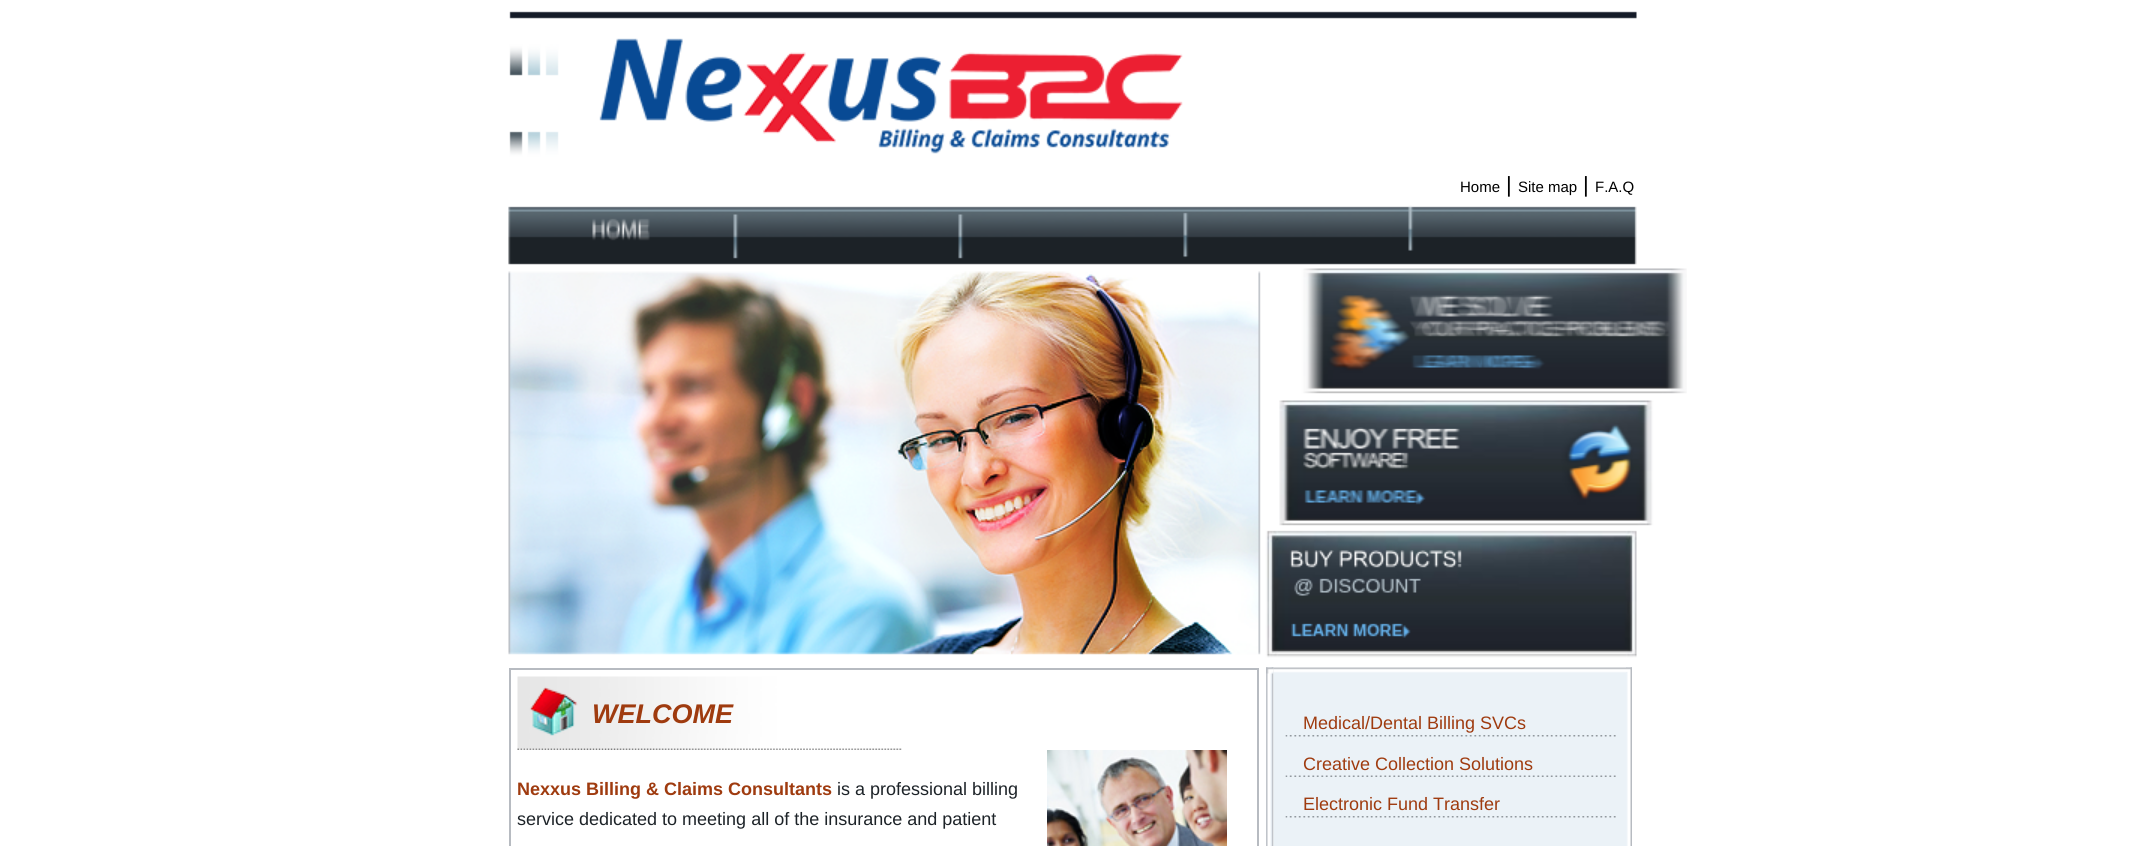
#include <cairo.h>
#include <math.h>
#include <stddef.h>

typedef struct { const char *family; double size; int italic, bold; unsigned color; } style_t;
static cairo_t *ctx;

static void ink(unsigned color) {
    cairo_set_source_rgb(ctx, (color >> 16) / 255.0, (color >> 8 & 255) / 255.0, (color & 255) / 255.0);
}

static void write(double x, double y, const char *s, const style_t *st) {
    cairo_select_font_face(ctx, st->family, st->italic ? CAIRO_FONT_SLANT_ITALIC : CAIRO_FONT_SLANT_NORMAL,
        st->bold ? CAIRO_FONT_WEIGHT_BOLD : CAIRO_FONT_WEIGHT_NORMAL);
    cairo_set_font_size(ctx, st->size);
    ink(st->color);
    cairo_move_to(ctx, x, y);
    cairo_show_text(ctx, s);
}

static void block(double x, double y, double w, double h, unsigned color) {
    ink(color);
    cairo_rectangle(ctx, x, y, w, h);
    cairo_fill(ctx);
}

static void paste(const char *path, double x, double y, double w, double h) {
    cairo_surface_t *image = cairo_image_surface_create_from_png(path);
    cairo_save(ctx);
    cairo_set_source_surface(ctx, image, x, y);
    cairo_rectangle(ctx, x, y, w, h);
    cairo_fill(ctx);
    cairo_restore(ctx);
    cairo_surface_destroy(image);
}

static const style_t s1 = {"Liberation Sans", 15, 0, 0, 0x000000};
static const style_t s2 = {"Liberation Sans", 22, 0, 0, 0x000000};
static const style_t s3 = {"Liberation Sans", 27, 1, 1, 0x9f3b0f};
static const style_t s4 = {"Liberation Sans", 18, 0, 1, 0x9f3b0f};
static const style_t s5 = {"Liberation Sans", 18, 0, 0, 0x1d2328};
static const style_t s6 = {"Liberation Sans", 18, 0, 0, 0x9f3b0f};

int main(void) {
    cairo_surface_t *surface = cairo_image_surface_create(CAIRO_FORMAT_RGB24, 2142, 846);
    ctx = cairo_create(surface);
    cairo_font_options_t *options = cairo_font_options_create();
    cairo_font_options_set_hint_metrics(options, CAIRO_HINT_METRICS_OFF);
    cairo_font_options_set_hint_style(options, CAIRO_HINT_STYLE_NONE);
    cairo_set_font_options(ctx, options);
    cairo_set_miter_limit(ctx, 4);
    ink(0xffffff);
    cairo_paint(ctx);
    paste("pic1.png", 508, 11, 1179, 647);
    paste("pic2.png", 599, 38, 584, 116);
    write(1460, 192, "Home", &s1);
    write(1506, 192, "|", &s2);
    write(1518, 192, "Site map", &s1);
    write(1583, 192, "|", &s2);
    write(1595, 192, "F.A.Q", &s1);
    cairo_rectangle(ctx, 510, 669, 748, 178);
    ink(0xb7bbc1);
    cairo_stroke(ctx);
    paste("pic3.png", 517, 676, 385, 74);
    write(592, 723, "WELCOME", &s3);
    write(517, 795, "Nexxus Billing & Claims Consultants", &s4);
    write(837, 795, "is a professional billing", &s5);
    write(517, 825, "service dedicated to meeting all of the insurance and patient", &s5);
    paste("pic4.png", 1047, 750, 180, 96);
    block(1273, 673, 353, 173, 0xebf2f7);
    paste("pic5.png", 1266, 667, 366, 6);
    paste("pic6.png", 1266, 667, 8, 179);
    paste("pic7.png", 1626, 667, 6, 179);
    paste("pic8.png", 1626, 667, 6, 5);
    paste("pic9.png", 1266, 667, 8, 7);
    paste("pic10.png", 1285, 735, 331, 2);
    write(1303, 729, "Medical/Dental Billing SVCs", &s6);
    paste("pic11.png", 1285, 775, 331, 2);
    write(1303, 770, "Creative Collection Solutions", &s6);
    paste("pic10.png", 1285, 816, 331, 2);
    write(1303, 810, "Electronic Fund Transfer", &s6);
    cairo_surface_write_to_png(surface, "screenshot.png");
    cairo_font_options_destroy(options);
    cairo_destroy(ctx);
    cairo_surface_destroy(surface);
    return 0;
}
